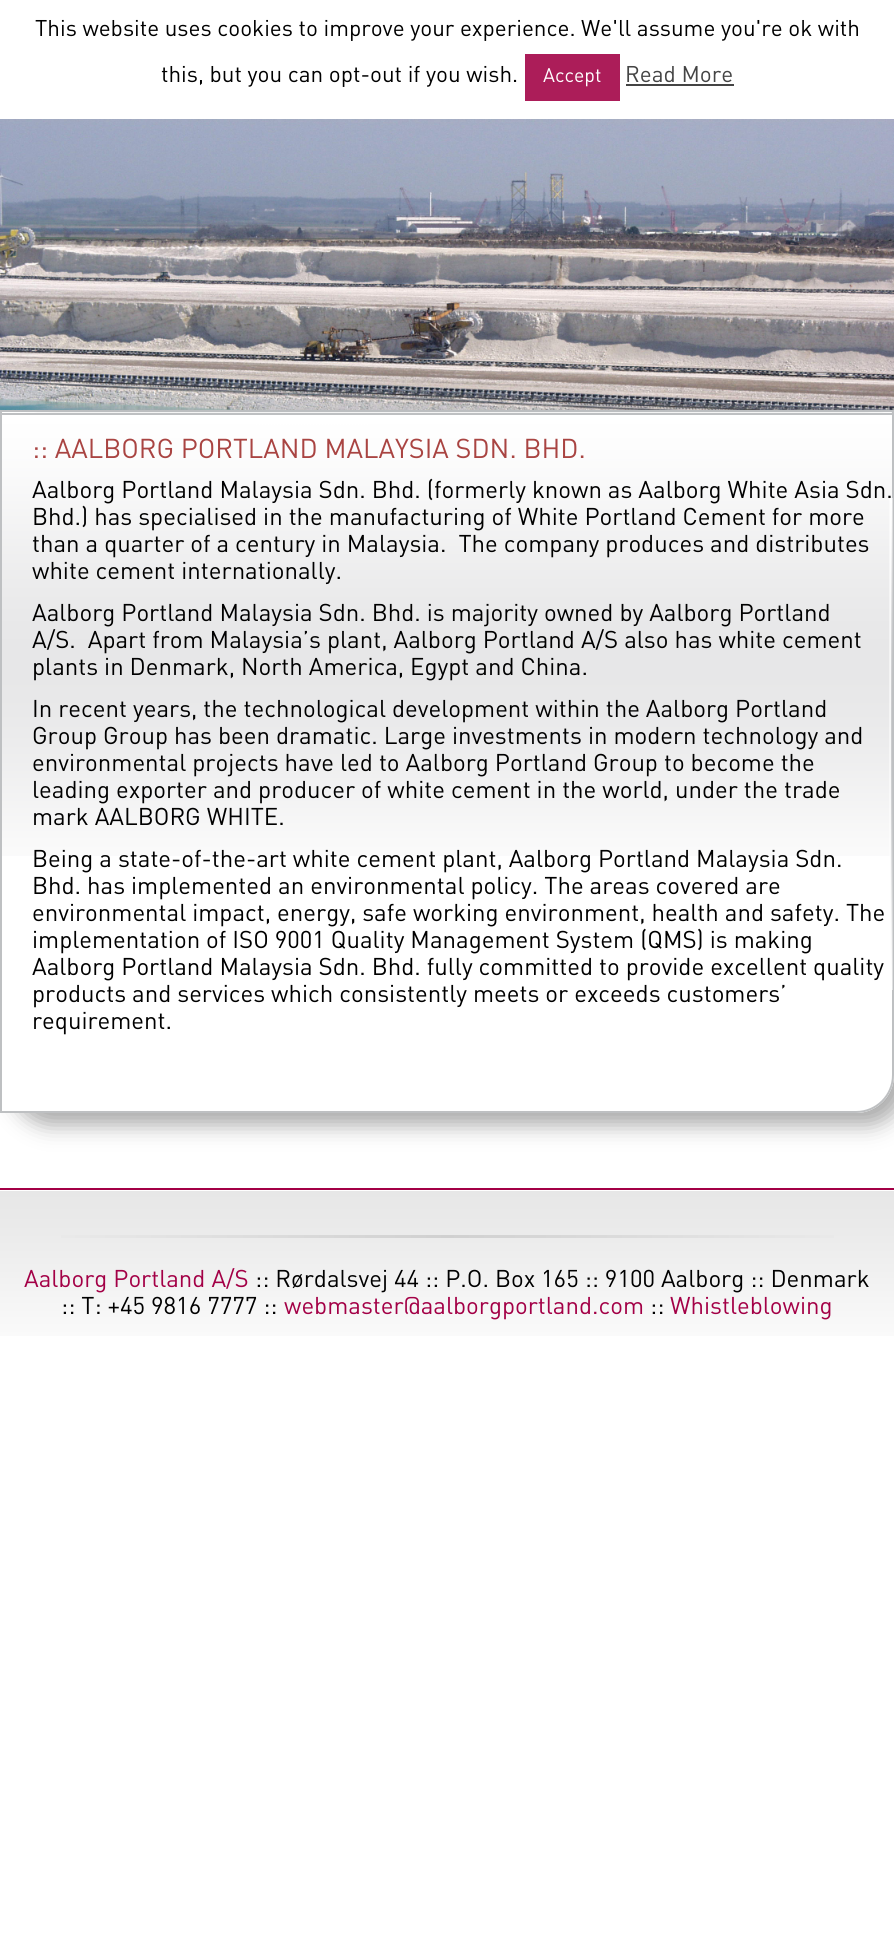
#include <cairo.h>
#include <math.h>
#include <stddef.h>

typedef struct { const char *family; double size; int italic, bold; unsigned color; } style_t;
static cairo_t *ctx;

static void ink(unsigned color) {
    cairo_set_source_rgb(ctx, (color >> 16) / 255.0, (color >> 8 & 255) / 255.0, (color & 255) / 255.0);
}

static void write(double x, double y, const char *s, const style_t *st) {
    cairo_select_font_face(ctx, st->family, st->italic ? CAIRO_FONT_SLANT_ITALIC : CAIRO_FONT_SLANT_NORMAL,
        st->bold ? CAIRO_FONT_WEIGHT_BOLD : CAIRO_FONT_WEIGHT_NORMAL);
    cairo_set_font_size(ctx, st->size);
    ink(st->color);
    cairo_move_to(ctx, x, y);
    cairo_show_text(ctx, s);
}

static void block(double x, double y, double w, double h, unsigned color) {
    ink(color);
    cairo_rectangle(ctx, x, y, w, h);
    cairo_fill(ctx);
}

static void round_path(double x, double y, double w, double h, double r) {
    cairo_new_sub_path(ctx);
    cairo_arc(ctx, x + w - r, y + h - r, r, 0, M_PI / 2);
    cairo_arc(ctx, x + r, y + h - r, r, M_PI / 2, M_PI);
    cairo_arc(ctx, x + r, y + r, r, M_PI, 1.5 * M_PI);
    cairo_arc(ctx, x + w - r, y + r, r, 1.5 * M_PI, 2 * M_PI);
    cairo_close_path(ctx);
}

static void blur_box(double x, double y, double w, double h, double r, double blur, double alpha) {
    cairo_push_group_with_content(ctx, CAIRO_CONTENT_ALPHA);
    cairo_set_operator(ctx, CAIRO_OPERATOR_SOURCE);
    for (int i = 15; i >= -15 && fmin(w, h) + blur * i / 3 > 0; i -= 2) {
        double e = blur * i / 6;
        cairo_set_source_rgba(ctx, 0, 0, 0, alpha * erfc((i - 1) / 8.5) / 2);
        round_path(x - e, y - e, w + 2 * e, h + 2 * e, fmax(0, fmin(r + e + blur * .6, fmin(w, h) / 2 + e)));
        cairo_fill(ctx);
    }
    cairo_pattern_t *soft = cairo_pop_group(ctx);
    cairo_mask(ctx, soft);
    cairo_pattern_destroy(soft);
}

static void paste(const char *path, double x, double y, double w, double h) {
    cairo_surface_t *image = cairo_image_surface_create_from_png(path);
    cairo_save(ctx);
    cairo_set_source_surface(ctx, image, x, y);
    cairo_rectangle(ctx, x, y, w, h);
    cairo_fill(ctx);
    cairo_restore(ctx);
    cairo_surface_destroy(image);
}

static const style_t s1 = {"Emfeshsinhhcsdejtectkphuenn", 22.5, 0, 0, 0x000000};
static const style_t s2 = {"Emfeshsinhhcsdejtectkphuenn", 19.5, 0, 0, 0xffffff};
static const style_t s3 = {"Emfeshsinhhcsdejtectkphuenn", 22.5, 0, 0, 0x444444};
static const style_t s4 = {"Emfeshsinhhcsdejtectkphuenn", 27, 0, 0, 0xa94442};
static const style_t s5 = {"Emfeshsinhhcsdejtectkphuenn", 24, 0, 0, 0x000000};
static const style_t s6 = {"Emfeshsinhhcsdejtectkphuenn", 24, 0, 0, 0xa30046};

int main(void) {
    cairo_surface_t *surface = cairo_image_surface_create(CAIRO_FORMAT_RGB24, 894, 1952);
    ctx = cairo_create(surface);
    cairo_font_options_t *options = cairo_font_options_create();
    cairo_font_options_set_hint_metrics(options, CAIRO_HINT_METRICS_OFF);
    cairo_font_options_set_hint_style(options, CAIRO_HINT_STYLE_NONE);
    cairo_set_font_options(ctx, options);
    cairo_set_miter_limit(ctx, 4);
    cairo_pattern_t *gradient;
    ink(0xffffff);
    cairo_paint(ctx);
    paste("pic1.png", 0, 119, 894, 294);
    ink(0xacabab);
    blur_box(0, -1, 894, 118, 0, 7.5, 0.3);
    block(0, 0, 894, 119, 0xffffff);
    write(35, 36, "This website uses cookies to improve your experience. We'll assume you're ok with", &s1);
    write(161, 82, "this, but you can opt-out if you wish.", &s1);
    block(525, 54, 95, 47, 0xac1d59);
    write(543, 82, "Accept", &s2);
    write(625, 82, "Read More", &s3);
    block(626, 84, 108, 2, 0x444444);
    ink(0xaaaaaa);
    blur_box(12, 422, 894, 33, 33, 11, 1);
    paste("pic2.png", 2, 411, 892, 2);
    cairo_new_path(ctx);
    cairo_move_to(ctx, 1, 411);
    cairo_line_to(ctx, 893, 411);
    cairo_line_to(ctx, 893, 410);
    cairo_curve_to(ctx, 893, 427.5, 878.5, 442, 861, 442);
    cairo_line_to(ctx, 1, 442);
    cairo_close_path(ctx);
    ink(0xbec0c2);
    cairo_stroke(ctx);
    cairo_save(ctx);
    cairo_set_fill_rule(ctx, CAIRO_FILL_RULE_EVEN_ODD);
    cairo_new_path(ctx);
    cairo_move_to(ctx, 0, 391);
    cairo_line_to(ctx, 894, 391);
    cairo_line_to(ctx, 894, 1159);
    cairo_line_to(ctx, 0, 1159);
    cairo_close_path(ctx);
    cairo_move_to(ctx, 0, 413);
    cairo_line_to(ctx, 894, 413);
    cairo_line_to(ctx, 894, 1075);
    cairo_curve_to(ctx, 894, 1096, 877, 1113, 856, 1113);
    cairo_line_to(ctx, 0, 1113);
    cairo_close_path(ctx);
    cairo_clip(ctx);
    ink(0xaaaaaa);
    blur_box(12, 425, 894, 700, 38, 11, 1);
    cairo_restore(ctx);
    paste("pic3.png", 2, 415, 890, 441);
    cairo_new_path(ctx);
    cairo_move_to(ctx, 1, 414);
    cairo_line_to(ctx, 893, 414);
    cairo_line_to(ctx, 893, 1075);
    cairo_curve_to(ctx, 893, 1095.5, 876.5, 1112, 856, 1112);
    cairo_line_to(ctx, 1, 1112);
    cairo_close_path(ctx);
    cairo_stroke(ctx);
    paste("pic4.png", 889, 498, 4, 492);
    write(32, 458, ":: AALBORG PORTLAND MALAYSIA SDN. BHD.", &s4);
    write(32, 498, "Aalborg Portland Malaysia Sdn. Bhd. (formerly known as Aalborg White Asia Sdn.", &s5);
    write(32, 525, "Bhd.) has specialised in the manufacturing of White Portland Cement for more", &s5);
    write(32, 552, "than a quarter of a century in Malaysia.  The company produces and distributes", &s5);
    write(32, 579, "white cement internationally.", &s5);
    write(32, 621, "Aalborg Portland Malaysia Sdn. Bhd. is majority owned by Aalborg Portland", &s5);
    write(32, 648, "A/S.  Apart from Malaysia’s plant, Aalborg Portland A/S also has white cement", &s5);
    write(32, 675, "plants in Denmark, North America, Egypt and China.", &s5);
    write(32, 717, "In recent years, the technological development within the Aalborg Portland", &s5);
    write(32, 744, "Group Group has been dramatic. Large investments in modern technology and", &s5);
    write(32, 771, "environmental projects have led to Aalborg Portland Group to become the", &s5);
    write(32, 798, "leading exporter and producer of white cement in the world, under the trade", &s5);
    write(32, 825, "mark AALBORG WHITE.", &s5);
    write(32, 867, "Being a state-of-the-art white cement plant, Aalborg Portland Malaysia Sdn.", &s5);
    write(32, 894, "Bhd. has implemented an environmental policy. The areas covered are", &s5);
    write(32, 921, "environmental impact, energy, safe working environment, health and safety. The", &s5);
    write(32, 948, "implementation of ISO 9001 Quality Management System (QMS) is making", &s5);
    write(32, 975, "Aalborg Portland Malaysia Sdn. Bhd. fully committed to provide excellent quality", &s5);
    write(32, 1002, "products and services which consistently meets or exceeds customers’", &s5);
    write(32, 1029, "requirement.", &s5);
    paste("pic5.png", 0, 1191, 894, 145);
    block(0, 1188, 894, 2, 0xa30046);
    gradient = cairo_pattern_create_linear(23, 1236, 872, 1236);
    cairo_pattern_add_color_stop_rgba(gradient, 0, 0.925, 0.925, 0.925, 1);
    cairo_pattern_add_color_stop_rgba(gradient, 0.5, 0.816, 0.816, 0.816, 1);
    cairo_pattern_add_color_stop_rgba(gradient, 1, 0.925, 0.925, 0.925, 1);
    cairo_set_source(ctx, gradient);
    cairo_pattern_destroy(gradient);
    cairo_rectangle(ctx, 61, 1235, 773, 3);
    cairo_fill(ctx);
    write(24, 1287, "Aalborg Portland A/S", &s6);
    write(255, 1287, ":: Rørdalsvej 44 :: P.O. Box 165 :: 9100 Aalborg :: Denmark", &s5);
    write(61, 1314, ":: T: +45 9816 7777 ::", &s5);
    write(284, 1314, "webmaster@aalborgportland.com", &s6);
    write(650, 1314, "::", &s5);
    write(670, 1314, "Whistleblowing", &s6);
    cairo_surface_write_to_png(surface, "screenshot.png");
    cairo_font_options_destroy(options);
    cairo_destroy(ctx);
    cairo_surface_destroy(surface);
    return 0;
}
